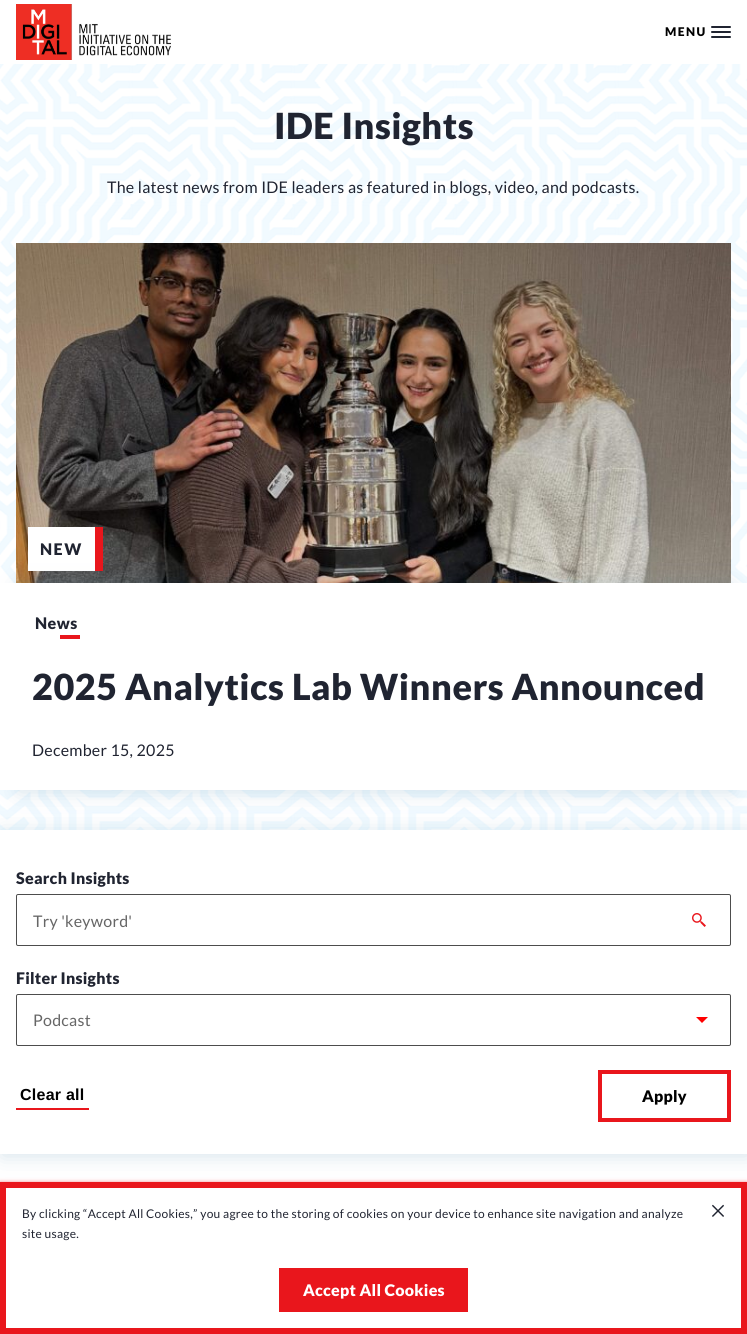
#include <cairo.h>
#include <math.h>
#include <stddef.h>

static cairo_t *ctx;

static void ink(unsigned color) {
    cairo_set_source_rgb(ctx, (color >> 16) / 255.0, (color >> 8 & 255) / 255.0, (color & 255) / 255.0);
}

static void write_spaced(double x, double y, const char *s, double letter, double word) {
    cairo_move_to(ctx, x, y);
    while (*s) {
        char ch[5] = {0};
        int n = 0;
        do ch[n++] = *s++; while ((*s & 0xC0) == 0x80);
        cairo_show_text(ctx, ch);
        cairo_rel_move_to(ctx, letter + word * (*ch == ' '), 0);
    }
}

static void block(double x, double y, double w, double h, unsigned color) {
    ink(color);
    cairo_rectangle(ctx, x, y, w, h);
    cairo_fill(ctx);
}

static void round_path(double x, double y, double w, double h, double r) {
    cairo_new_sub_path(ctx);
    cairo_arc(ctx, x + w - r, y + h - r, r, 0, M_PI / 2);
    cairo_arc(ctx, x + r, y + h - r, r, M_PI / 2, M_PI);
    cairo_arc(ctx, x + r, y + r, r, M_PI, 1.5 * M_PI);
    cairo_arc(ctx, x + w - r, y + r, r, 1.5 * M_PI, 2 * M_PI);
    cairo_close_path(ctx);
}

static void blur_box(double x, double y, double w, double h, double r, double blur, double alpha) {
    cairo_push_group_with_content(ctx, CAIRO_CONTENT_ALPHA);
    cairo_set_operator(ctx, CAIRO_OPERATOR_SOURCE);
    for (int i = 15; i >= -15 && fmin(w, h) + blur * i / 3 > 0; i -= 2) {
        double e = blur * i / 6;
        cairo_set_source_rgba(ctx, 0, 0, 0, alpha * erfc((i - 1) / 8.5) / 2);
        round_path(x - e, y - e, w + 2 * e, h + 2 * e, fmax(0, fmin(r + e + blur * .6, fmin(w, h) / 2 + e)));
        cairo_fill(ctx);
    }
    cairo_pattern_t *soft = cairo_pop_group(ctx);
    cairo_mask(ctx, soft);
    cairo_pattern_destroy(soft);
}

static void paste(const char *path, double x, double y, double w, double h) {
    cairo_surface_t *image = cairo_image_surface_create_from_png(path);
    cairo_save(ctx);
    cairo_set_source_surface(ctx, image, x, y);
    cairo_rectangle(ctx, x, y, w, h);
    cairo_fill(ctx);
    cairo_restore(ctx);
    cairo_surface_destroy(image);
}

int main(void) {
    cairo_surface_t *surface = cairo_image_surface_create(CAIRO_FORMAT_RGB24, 747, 1334);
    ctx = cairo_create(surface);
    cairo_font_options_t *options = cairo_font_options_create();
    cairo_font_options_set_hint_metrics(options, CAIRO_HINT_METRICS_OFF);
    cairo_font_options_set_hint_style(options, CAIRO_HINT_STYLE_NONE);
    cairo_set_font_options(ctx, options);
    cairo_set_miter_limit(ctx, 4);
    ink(0xffffff);
    cairo_paint(ctx);
    paste("pic1.png", 16, 4, 155, 56);
    cairo_select_font_face(ctx, "Lato Black", CAIRO_FONT_SLANT_NORMAL, CAIRO_FONT_WEIGHT_NORMAL);
    cairo_set_font_size(ctx, 12);
    ink(0x000000);
    write_spaced(665, 36, "MENU", 1.5, 0);
    ink(0x202431);
    round_path(711, 31, 20, 2, 1);
    cairo_fill(ctx);
    round_path(711, 26, 20, 2, 1);
    cairo_fill(ctx);
    round_path(711, 36, 20, 2, 1);
    cairo_fill(ctx);
    cairo_save(ctx);
    cairo_set_fill_rule(ctx, CAIRO_FILL_RULE_EVEN_ODD);
    cairo_new_path(ctx);
    cairo_move_to(ctx, 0, 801);
    cairo_line_to(ctx, 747, 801);
    cairo_line_to(ctx, 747, 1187);
    cairo_line_to(ctx, 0, 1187);
    cairo_close_path(ctx);
    cairo_move_to(ctx, 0, 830);
    cairo_line_to(ctx, 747, 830);
    cairo_line_to(ctx, 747, 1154);
    cairo_line_to(ctx, 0, 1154);
    cairo_close_path(ctx);
    cairo_clip(ctx);
    ink(0x427fa4);
    blur_box(2, 832, 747, 324, 0, 10, 0.22);
    cairo_restore(ctx);
    paste("pic2.png", 0, 64, 747, 766);
    cairo_set_font_size(ctx, 36);
    write_spaced(274, 139, "IDE Insights", 0.5, 0);
    cairo_select_font_face(ctx, "Lato", CAIRO_FONT_SLANT_NORMAL, CAIRO_FONT_WEIGHT_NORMAL);
    cairo_set_font_size(ctx, 16);
    write_spaced(107, 193, "The latest news from IDE leaders as featured in blogs, video, and podcasts.", 0.25, 0);
    paste("pic3.png", 16, 243, 715, 340);
    block(28, 527, 67, 44, 0xffffff);
    block(95, 527, 8, 44, 0xe9161c);
    cairo_select_font_face(ctx, "Lato Black", CAIRO_FONT_SLANT_NORMAL, CAIRO_FONT_WEIGHT_NORMAL);
    ink(0x202431);
    write_spaced(40, 555, "NEW", 1.5, 0);
    ink(0x427fa4);
    blur_box(18, 585, 715, 207, 0, 10, 0.22);
    block(0, 583, 747, 207, 0xffffff);
    ink(0x202431);
    write_spaced(35, 629, "News", 0.5, 0);
    block(60, 635, 20, 4, 0xe9161c);
    cairo_set_font_size(ctx, 36);
    ink(0x202431);
    write_spaced(32, 700, "2025 Analytics Lab Winners Announced", 0.5, 0);
    cairo_select_font_face(ctx, "Lato", CAIRO_FONT_SLANT_NORMAL, CAIRO_FONT_WEIGHT_NORMAL);
    cairo_set_font_size(ctx, 16);
    write_spaced(32, 756, "December 15, 2025", 0.25, 0);
    cairo_select_font_face(ctx, "Lato Black", CAIRO_FONT_SLANT_NORMAL, CAIRO_FONT_WEIGHT_NORMAL);
    write_spaced(16, 884, "Search Insights", 0.25, 0);
    round_path(16.5, 894.5, 714, 51, 1.5);
    ink(0x4d4d4d);
    cairo_set_line_width(ctx, 1);
    cairo_stroke(ctx);
    cairo_select_font_face(ctx, "Lato", CAIRO_FONT_SLANT_NORMAL, CAIRO_FONT_WEIGHT_NORMAL);
    ink(0x666666);
    write_spaced(33, 927, "Try 'keyword'", 0.25, 0);
    paste("pic4.png", 692, 913, 14, 14);
    cairo_select_font_face(ctx, "Lato Black", CAIRO_FONT_SLANT_NORMAL, CAIRO_FONT_WEIGHT_NORMAL);
    ink(0x202431);
    write_spaced(16, 984, "Filter Insights", 0.25, 0);
    round_path(16.5, 994.5, 714, 51, 1.5);
    ink(0x4d4d4d);
    cairo_stroke(ctx);
    cairo_select_font_face(ctx, "Lato", CAIRO_FONT_SLANT_NORMAL, CAIRO_FONT_WEIGHT_NORMAL);
    ink(0x666666);
    write_spaced(33, 1026, "Podcast", 0.25, 0);
    ink(0xff0000);
    cairo_new_path(ctx);
    cairo_move_to(ctx, 696, 1017);
    cairo_line_to(ctx, 708, 1017);
    cairo_line_to(ctx, 702, 1023);
    cairo_close_path(ctx);
    cairo_fill(ctx);
    block(16, 1108, 73, 2, 0xe9161c);
    cairo_select_font_face(ctx, "Liberation Sans", CAIRO_FONT_SLANT_NORMAL, CAIRO_FONT_WEIGHT_BOLD);
    ink(0x000000);
    write_spaced(20, 1100, "Clear all", 0.25, 0);
    cairo_rectangle(ctx, 600, 1072, 129, 48);
    ink(0xe9161c);
    cairo_set_line_width(ctx, 4);
    cairo_stroke(ctx);
    cairo_select_font_face(ctx, "Lato Black", CAIRO_FONT_SLANT_NORMAL, CAIRO_FONT_WEIGHT_NORMAL);
    ink(0x000000);
    write_spaced(642, 1102, "Apply", 0.25, 0);
    ink(0xe9161c);
    blur_box(0, 1182, 747, 152, 0, 2, 0.5);
    ink(0xffffff);
    cairo_rectangle(ctx, 3, 1185, 741, 146);
    cairo_fill_preserve(ctx);
    ink(0xe9161c);
    cairo_set_line_width(ctx, 6);
    cairo_stroke(ctx);
    cairo_select_font_face(ctx, "Lato", CAIRO_FONT_SLANT_NORMAL, CAIRO_FONT_WEIGHT_NORMAL);
    cairo_set_font_size(ctx, 12);
    ink(0x202431);
    write_spaced(22, 1218, "By clicking “Accept All Cookies,” you agree to the storing of cookies on your device to enhance site navigation and analyze", 0.25, 0);
    write_spaced(22, 1238, "site usage.", 0.25, 0);
    paste("pic5.png", 712, 1204, 12, 13);
    block(279, 1268, 189, 44, 0xe9161c);
    cairo_select_font_face(ctx, "Lato Black", CAIRO_FONT_SLANT_NORMAL, CAIRO_FONT_WEIGHT_NORMAL);
    cairo_set_font_size(ctx, 16);
    ink(0xffffff);
    write_spaced(303, 1296, "Accept All Cookies", 0.25, 0);
    cairo_surface_write_to_png(surface, "screenshot.png");
    cairo_font_options_destroy(options);
    cairo_destroy(ctx);
    cairo_surface_destroy(surface);
    return 0;
}
